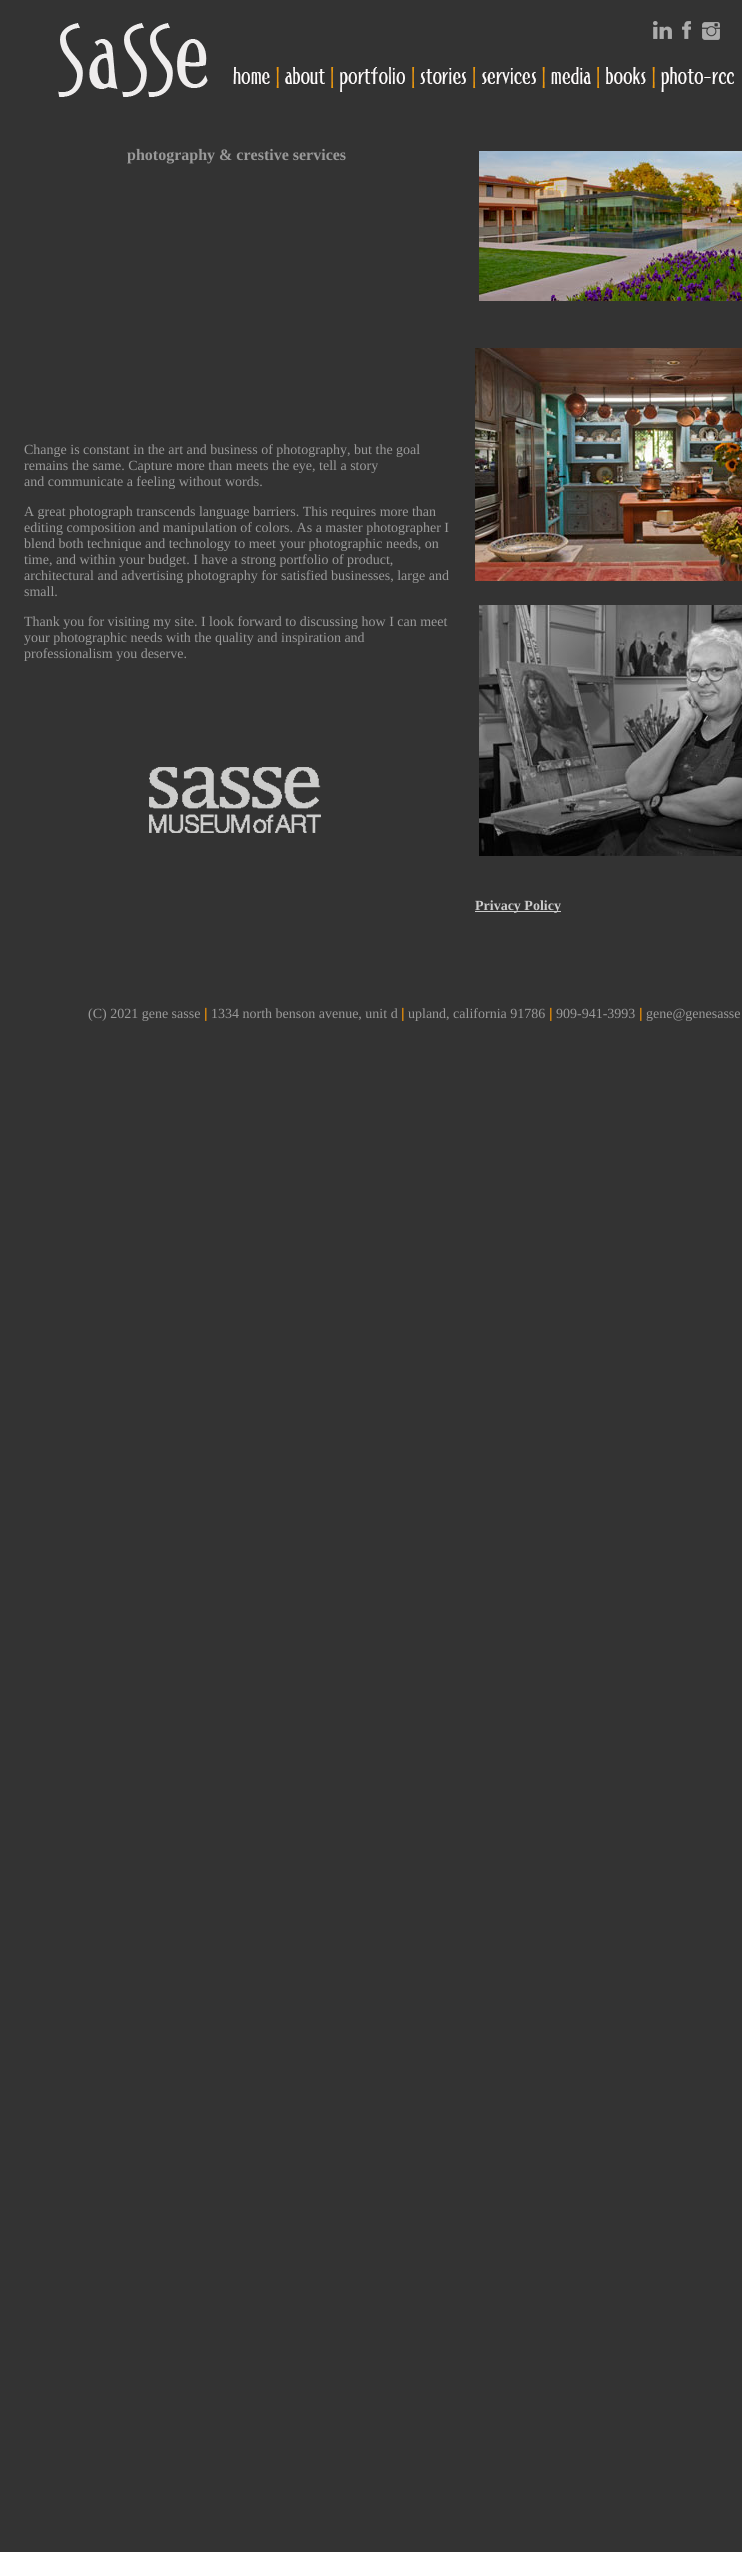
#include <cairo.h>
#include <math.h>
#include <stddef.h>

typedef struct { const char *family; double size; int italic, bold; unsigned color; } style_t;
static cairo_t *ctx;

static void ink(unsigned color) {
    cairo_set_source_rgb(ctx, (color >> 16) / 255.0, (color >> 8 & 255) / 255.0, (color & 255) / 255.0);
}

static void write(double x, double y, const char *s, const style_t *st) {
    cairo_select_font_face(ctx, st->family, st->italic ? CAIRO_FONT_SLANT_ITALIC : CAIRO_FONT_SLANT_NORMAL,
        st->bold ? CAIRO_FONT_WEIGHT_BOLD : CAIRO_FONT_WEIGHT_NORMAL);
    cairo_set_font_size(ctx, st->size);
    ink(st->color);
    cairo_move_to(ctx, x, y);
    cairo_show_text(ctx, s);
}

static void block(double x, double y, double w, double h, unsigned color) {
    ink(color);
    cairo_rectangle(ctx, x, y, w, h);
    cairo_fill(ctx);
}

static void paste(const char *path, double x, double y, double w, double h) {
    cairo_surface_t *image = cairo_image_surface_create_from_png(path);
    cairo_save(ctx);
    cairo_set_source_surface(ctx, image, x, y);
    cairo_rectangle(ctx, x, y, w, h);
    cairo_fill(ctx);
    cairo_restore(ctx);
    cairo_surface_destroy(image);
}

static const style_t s1 = {"Liberation Serif", 16, 0, 1, 0x999999};
static const style_t s2 = {"Liberation Serif", 14, 0, 0, 0x999999};
static const style_t s3 = {"Liberation Serif", 14, 0, 1, 0xcccccc};
static const style_t s4 = {"Liberation Sans", 14, 0, 0, 0xff9900};

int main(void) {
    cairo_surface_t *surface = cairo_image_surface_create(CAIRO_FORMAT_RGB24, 742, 2552);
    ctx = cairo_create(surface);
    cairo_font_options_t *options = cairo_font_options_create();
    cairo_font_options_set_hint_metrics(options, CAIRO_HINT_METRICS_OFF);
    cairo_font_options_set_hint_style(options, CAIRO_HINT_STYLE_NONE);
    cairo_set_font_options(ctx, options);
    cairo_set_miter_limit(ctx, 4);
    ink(0x333333);
    cairo_paint(ctx);
    paste("pic1.png", 58, 21, 676, 76);
    write(127, 160, "photography & crestive services", &s1);
    paste("pic2.png", 479, 151, 263, 150);
    write(24, 454, "Change is constant in the art and business of photography, but the goal", &s2);
    write(24, 470, "remains the same. Capture more than meets the eye, tell a story", &s2);
    write(24, 486, "and communicate a feeling without words.", &s2);
    write(24, 516, "A great photograph transcends language barriers. This requires more than", &s2);
    write(24, 532, "editing composition and manipulation of colors. As a master photographer I", &s2);
    write(24, 548, "blend both technique and technology to meet your photographic needs, on", &s2);
    write(24, 564, "time, and within your budget. I have a strong portfolio of product,", &s2);
    write(24, 580, "architectural and advertising photography for satisfied businesses, large and", &s2);
    write(24, 596, "small.", &s2);
    write(24, 626, "Thank you for visiting my site. I look forward to discussing how I can meet", &s2);
    write(24, 642, "your photographic needs with the quality and inspiration and", &s2);
    write(24, 658, "professionalism you deserve.", &s2);
    paste("pic3.png", 475, 348, 267, 233);
    paste("pic4.png", 149, 767, 172, 66);
    paste("pic5.png", 479, 605, 263, 251);
    block(475, 911, 86, 1, 0xcccccc);
    write(475, 910, "Privacy Policy", &s3);
    write(88, 1018, "(C) 2021 gene sasse", &s2);
    write(204, 1018, "|", &s4);
    write(211, 1018, "1334 north benson avenue, unit d", &s2);
    write(401, 1018, "|", &s4);
    write(408, 1018, "upland, california 91786", &s2);
    write(549, 1018, "|", &s4);
    write(556, 1018, "909-941-3993", &s2);
    write(639, 1018, "|", &s4);
    write(646, 1018, "gene@genesasse", &s2);
    cairo_surface_write_to_png(surface, "screenshot.png");
    cairo_font_options_destroy(options);
    cairo_destroy(ctx);
    cairo_surface_destroy(surface);
    return 0;
}
